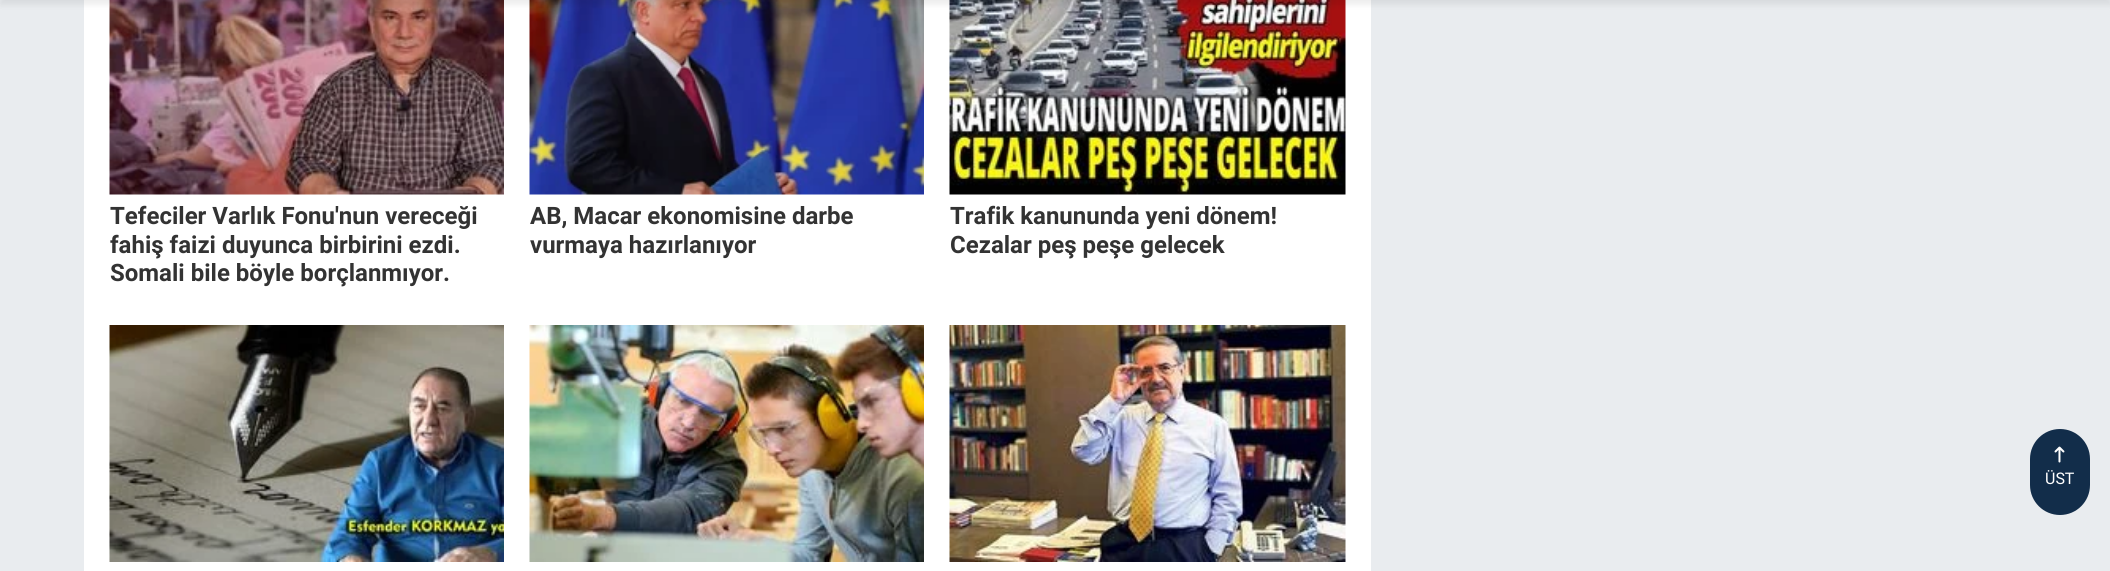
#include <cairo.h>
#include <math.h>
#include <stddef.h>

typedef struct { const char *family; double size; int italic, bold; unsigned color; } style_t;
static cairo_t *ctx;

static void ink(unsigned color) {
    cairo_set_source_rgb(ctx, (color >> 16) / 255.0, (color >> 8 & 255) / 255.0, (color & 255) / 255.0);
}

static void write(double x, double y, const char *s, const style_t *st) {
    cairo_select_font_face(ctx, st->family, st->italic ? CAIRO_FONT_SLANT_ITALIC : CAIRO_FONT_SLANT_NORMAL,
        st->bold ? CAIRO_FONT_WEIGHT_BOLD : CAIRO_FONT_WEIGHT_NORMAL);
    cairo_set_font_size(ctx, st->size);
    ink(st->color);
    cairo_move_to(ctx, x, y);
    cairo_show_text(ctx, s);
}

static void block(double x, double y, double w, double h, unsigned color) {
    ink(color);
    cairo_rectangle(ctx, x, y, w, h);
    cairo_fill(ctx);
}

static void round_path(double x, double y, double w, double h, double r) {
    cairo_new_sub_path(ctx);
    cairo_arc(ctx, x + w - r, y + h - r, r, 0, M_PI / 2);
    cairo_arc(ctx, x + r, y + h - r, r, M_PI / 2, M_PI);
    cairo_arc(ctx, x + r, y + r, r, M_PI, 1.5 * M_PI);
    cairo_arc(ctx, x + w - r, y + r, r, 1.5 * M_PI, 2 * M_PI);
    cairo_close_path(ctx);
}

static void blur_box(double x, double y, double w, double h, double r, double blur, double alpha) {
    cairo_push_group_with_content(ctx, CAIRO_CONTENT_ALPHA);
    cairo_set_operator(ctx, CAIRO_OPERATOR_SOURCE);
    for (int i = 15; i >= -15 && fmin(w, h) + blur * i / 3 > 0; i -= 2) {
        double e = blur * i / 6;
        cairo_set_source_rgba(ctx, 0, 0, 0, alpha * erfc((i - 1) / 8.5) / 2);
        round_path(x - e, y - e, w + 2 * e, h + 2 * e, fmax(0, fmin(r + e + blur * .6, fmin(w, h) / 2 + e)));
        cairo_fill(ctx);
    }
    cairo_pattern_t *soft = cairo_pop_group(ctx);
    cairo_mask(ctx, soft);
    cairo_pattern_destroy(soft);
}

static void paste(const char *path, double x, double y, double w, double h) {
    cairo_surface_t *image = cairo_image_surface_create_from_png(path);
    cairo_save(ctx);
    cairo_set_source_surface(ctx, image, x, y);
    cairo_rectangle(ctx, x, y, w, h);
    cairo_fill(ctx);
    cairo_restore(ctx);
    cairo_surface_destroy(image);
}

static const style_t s1 = {"Roboto", 24, 0, 1, 0x333333};
static const style_t s2 = {"Roboto", 16, 0, 0, 0xffffff};

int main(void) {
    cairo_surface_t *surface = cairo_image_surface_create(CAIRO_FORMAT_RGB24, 2110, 571);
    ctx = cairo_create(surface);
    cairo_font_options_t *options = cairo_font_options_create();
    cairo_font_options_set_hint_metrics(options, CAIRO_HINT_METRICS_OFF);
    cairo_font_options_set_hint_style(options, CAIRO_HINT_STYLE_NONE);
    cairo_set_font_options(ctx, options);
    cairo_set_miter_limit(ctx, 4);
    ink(0xe9ecef);
    cairo_paint(ctx);
    block(84, 0, 1287, 571, 0xffffff);
    paste("pic1.png", 109, 0, 395, 195);
    paste("pic2.png", 529, 0, 395, 195);
    paste("pic3.png", 949, 0, 397, 195);
    ink(0x000000);
    blur_box(0, -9, 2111, 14, 0, 3, 0.07);
    write(110, 224, "Tefeciler Varlık Fonu'nun vereceği", &s1);
    write(110, 253, "fahiş faizi duyunca birbirini ezdi.", &s1);
    write(110, 281, "Somali bile böyle borçlanmıyor.", &s1);
    write(530, 224, "AB, Macar ekonomisine darbe", &s1);
    write(530, 253, "vurmaya hazırlanıyor", &s1);
    write(950, 224, "Trafik kanununda yeni dönem!", &s1);
    write(950, 253, "Cezalar peş peşe gelecek", &s1);
    paste("pic4.png", 109, 325, 395, 237);
    paste("pic5.png", 529, 325, 395, 237);
    paste("pic6.png", 949, 325, 397, 237);
    ink(0x122d4a);
    round_path(2030, 429, 60, 86, 30);
    cairo_fill(ctx);
    paste("pic7.png", 2054, 446, 11, 17);
    write(2045, 484, "ÜST", &s2);
    cairo_surface_write_to_png(surface, "screenshot.png");
    cairo_font_options_destroy(options);
    cairo_destroy(ctx);
    cairo_surface_destroy(surface);
    return 0;
}
